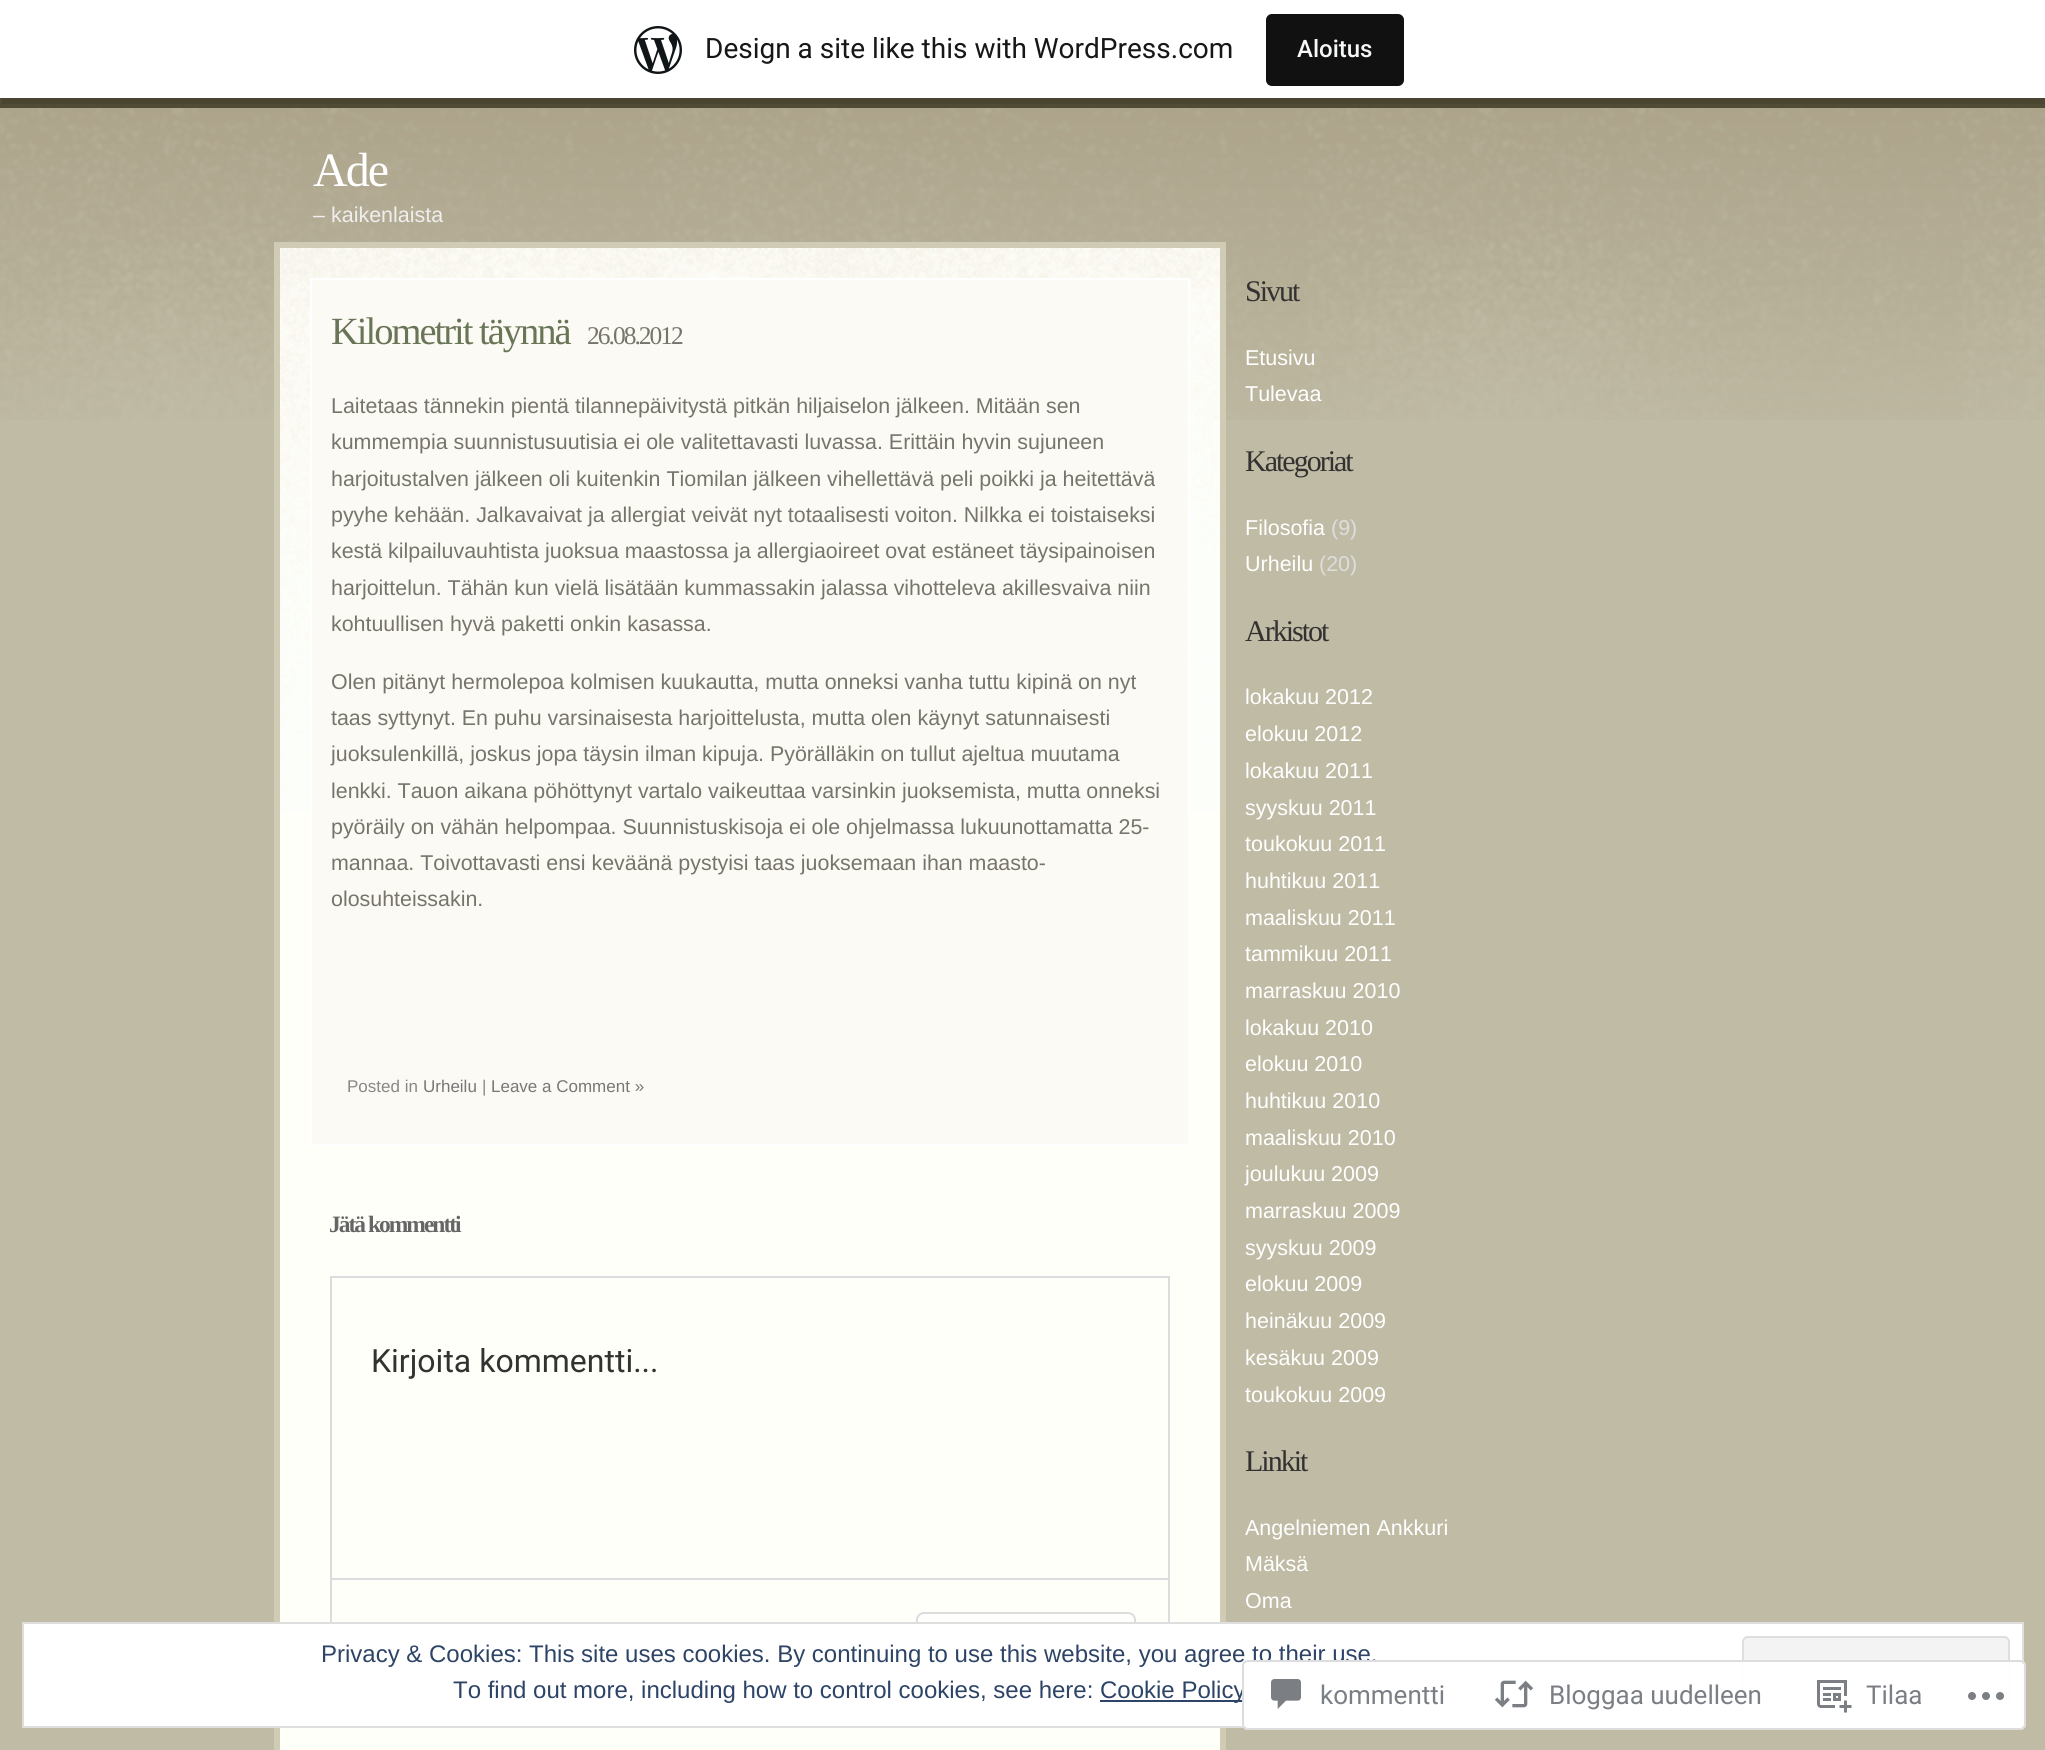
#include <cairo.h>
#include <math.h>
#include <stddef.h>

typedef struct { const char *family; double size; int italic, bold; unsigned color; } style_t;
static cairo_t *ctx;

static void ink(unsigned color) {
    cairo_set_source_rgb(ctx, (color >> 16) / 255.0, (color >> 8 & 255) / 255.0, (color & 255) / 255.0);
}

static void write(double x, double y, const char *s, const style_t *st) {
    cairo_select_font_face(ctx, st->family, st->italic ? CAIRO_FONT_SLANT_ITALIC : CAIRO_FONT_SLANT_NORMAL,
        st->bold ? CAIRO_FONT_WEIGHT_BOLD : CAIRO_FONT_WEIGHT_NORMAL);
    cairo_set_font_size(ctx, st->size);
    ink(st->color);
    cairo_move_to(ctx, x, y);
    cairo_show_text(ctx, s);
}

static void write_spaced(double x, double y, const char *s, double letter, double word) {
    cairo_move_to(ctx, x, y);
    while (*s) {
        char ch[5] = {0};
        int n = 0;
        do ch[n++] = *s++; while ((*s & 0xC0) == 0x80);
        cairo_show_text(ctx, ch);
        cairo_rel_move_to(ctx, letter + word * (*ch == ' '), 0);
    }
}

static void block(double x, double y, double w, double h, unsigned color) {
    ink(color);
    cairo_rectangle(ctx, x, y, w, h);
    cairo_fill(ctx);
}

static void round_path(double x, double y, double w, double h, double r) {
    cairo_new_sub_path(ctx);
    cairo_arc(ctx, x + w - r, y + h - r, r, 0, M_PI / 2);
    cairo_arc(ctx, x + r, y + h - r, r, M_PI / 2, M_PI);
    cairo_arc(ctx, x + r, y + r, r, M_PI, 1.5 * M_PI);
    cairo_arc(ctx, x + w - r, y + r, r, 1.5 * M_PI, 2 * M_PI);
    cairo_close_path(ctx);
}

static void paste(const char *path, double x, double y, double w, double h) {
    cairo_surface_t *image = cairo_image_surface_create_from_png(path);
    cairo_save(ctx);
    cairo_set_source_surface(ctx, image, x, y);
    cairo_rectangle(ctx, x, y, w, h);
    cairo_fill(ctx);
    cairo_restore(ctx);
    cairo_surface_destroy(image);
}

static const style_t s1 = {"Roboto", 28, 0, 0, 0x171717};
static const style_t s2 = {"Roboto Medium", 24, 0, 0, 0xf6f7f7};
static const style_t s3 = {"Liberation Sans", 21.5, 0, 0, 0xeeeeee};
static const style_t s4 = {"Liberation Sans", 21.4, 0, 0, 0x77756b};
static const style_t s5 = {"Liberation Sans", 17, 0, 0, 0x888888};
static const style_t s6 = {"Liberation Sans", 17, 0, 0, 0x777777};
static const style_t s7 = {"Roboto", 32, 0, 0, 0x333231};
static const style_t s8 = {"Liberation Sans", 21.5, 0, 0, 0xffffff};
static const style_t s9 = {"Liberation Sans", 21.5, 0, 0, 0xdddddd};
static const style_t s10 = {"Liberation Sans", 24, 0, 0, 0x2e4467};
static const style_t s11 = {"Roboto", 26, 0, 0, 0x7b7f85};

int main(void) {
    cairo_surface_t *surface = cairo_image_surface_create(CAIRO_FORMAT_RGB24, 2045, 1750);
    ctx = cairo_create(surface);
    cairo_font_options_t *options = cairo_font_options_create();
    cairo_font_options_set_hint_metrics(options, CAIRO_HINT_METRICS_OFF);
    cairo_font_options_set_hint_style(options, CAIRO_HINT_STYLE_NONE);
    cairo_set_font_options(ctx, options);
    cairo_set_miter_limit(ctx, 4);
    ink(0xc0bba5);
    cairo_paint(ctx);
    paste("pic1.png", 0, 108, 2045, 312);
    block(0, 98, 2045, 10, 0x504b35);
    cairo_set_source_rgba(ctx, 0, 0, 0, 0.08);
    cairo_new_path(ctx);
    cairo_move_to(ctx, 2, 98);
    cairo_line_to(ctx, 2, 104);
    cairo_line_to(ctx, 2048, 104);
    cairo_line_to(ctx, 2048, 6);
    cairo_line_to(ctx, 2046, 6);
    cairo_line_to(ctx, 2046, 98);
    cairo_close_path(ctx);
    cairo_fill(ctx);
    block(0, 0, 2045, 98, 0xffffff);
    paste("pic2.png", 634, 26, 48, 48);
    write(705, 58, "Design a site like this with WordPress.com", &s1);
    ink(0x111111);
    round_path(1266, 14, 138, 72, 6);
    cairo_fill(ctx);
    write(1297, 57, "Aloitus", &s2);
    cairo_select_font_face(ctx, "Liberation Serif", CAIRO_FONT_SLANT_NORMAL, CAIRO_FONT_WEIGHT_NORMAL);
    cairo_set_font_size(ctx, 48);
    ink(0xffffff);
    write_spaced(313, 186, "Ade", -2, 0);
    write(313, 222, "– kaikenlaista", &s3);
    block(280, 811, 940, 939, 0xfffffa);
    paste("pic3.png", 280, 248, 940, 563);
    block(274, 242, 952, 6, 0xd0cbb5);
    block(1220, 242, 6, 1508, 0xd0cbb5);
    block(274, 242, 6, 1508, 0xd0cbb5);
    ink(0xfcfaf4);
    cairo_rectangle(ctx, 311, 279, 878, 866);
    cairo_fill_preserve(ctx);
    ink(0xffffff);
    cairo_stroke(ctx);
    cairo_select_font_face(ctx, "Liberation Serif", CAIRO_FONT_SLANT_NORMAL, CAIRO_FONT_WEIGHT_NORMAL);
    cairo_set_font_size(ctx, 38.5);
    ink(0x697557);
    write_spaced(331, 344, "Kilometrit täynnä", -2, 0);
    cairo_set_font_size(ctx, 25.5);
    ink(0x77756b);
    write_spaced(587, 344, "26.08.2012", -2, 0);
    write(331, 413, "Laitetaas tännekin pientä tilannepäivitystä pitkän hiljaiselon jälkeen. Mitään sen", &s4);
    write(331, 449, "kummempia suunnistusuutisia ei ole valitettavasti luvassa. Erittäin hyvin sujuneen", &s4);
    write(331, 486, "harjoitustalven jälkeen oli kuitenkin Tiomilan jälkeen vihellettävä peli poikki ja heitettävä", &s4);
    write(331, 522, "pyyhe kehään. Jalkavaivat ja allergiat veivät nyt totaalisesti voiton. Nilkka ei toistaiseksi", &s4);
    write(331, 558, "kestä kilpailuvauhtista juoksua maastossa ja allergiaoireet ovat estäneet täysipainoisen", &s4);
    write(331, 595, "harjoittelun. Tähän kun vielä lisätään kummassakin jalassa vihotteleva akillesvaiva niin", &s4);
    write(331, 631, "kohtuullisen hyvä paketti onkin kasassa.", &s4);
    write(331, 689, "Olen pitänyt hermolepoa kolmisen kuukautta, mutta onneksi vanha tuttu kipinä on nyt", &s4);
    write(331, 725, "taas syttynyt. En puhu varsinaisesta harjoittelusta, mutta olen käynyt satunnaisesti", &s4);
    write(331, 761, "juoksulenkillä, joskus jopa täysin ilman kipuja. Pyörälläkin on tullut ajeltua muutama", &s4);
    write(331, 798, "lenkki. Tauon aikana pöhöttynyt vartalo vaikeuttaa varsinkin juoksemista, mutta onneksi", &s4);
    write(331, 834, "pyöräily on vähän helpompaa. Suunnistuskisoja ei ole ohjelmassa lukuunottamatta 25-", &s4);
    write(331, 870, "mannaa. Toivottavasti ensi keväänä pystyisi taas juoksemaan ihan maasto-", &s4);
    write(331, 906, "olosuhteissakin.", &s4);
    write(347, 1092, "Posted in", &s5);
    write(423, 1092, "Urheilu", &s6);
    write(482, 1092, "|", &s5);
    write(491, 1092, "Leave a Comment »", &s6);
    cairo_select_font_face(ctx, "Liberation Serif", CAIRO_FONT_SLANT_NORMAL, CAIRO_FONT_WEIGHT_BOLD);
    cairo_set_font_size(ctx, 23.5);
    ink(0x666666);
    write_spaced(329, 1232, "Jätä kommentti", -2, 0);
    cairo_rectangle(ctx, 331, 1277, 838, 448);
    ink(0xdcdcde);
    cairo_stroke(ctx);
    write(371, 1372, "Kirjoita kommentti...", &s7);
    block(332, 1578, 836, 2, 0xdcdcde);
    ink(0xfffffe);
    round_path(917, 1613, 218, 78, 7);
    cairo_fill_preserve(ctx);
    ink(0xdcdcde);
    cairo_stroke(ctx);
    cairo_select_font_face(ctx, "Liberation Serif", CAIRO_FONT_SLANT_NORMAL, CAIRO_FONT_WEIGHT_NORMAL);
    cairo_set_font_size(ctx, 30);
    ink(0x333231);
    write_spaced(1245, 301, "Sivut", -2, 0);
    write(1245, 365, "Etusivu", &s8);
    write(1245, 401, "Tulevaa", &s8);
    cairo_select_font_face(ctx, "Liberation Serif", CAIRO_FONT_SLANT_NORMAL, CAIRO_FONT_WEIGHT_NORMAL);
    cairo_set_font_size(ctx, 30);
    ink(0x333231);
    write_spaced(1245, 471, "Kategoriat", -2, 0);
    write(1245, 535, "Filosofia", &s8);
    write(1331, 535, "(9)", &s9);
    write(1245, 571, "Urheilu", &s8);
    write(1319, 571, "(20)", &s9);
    cairo_select_font_face(ctx, "Liberation Serif", CAIRO_FONT_SLANT_NORMAL, CAIRO_FONT_WEIGHT_NORMAL);
    cairo_set_font_size(ctx, 30);
    ink(0x333231);
    write_spaced(1245, 641, "Arkistot", -2, 0);
    write(1245, 704, "lokakuu 2012", &s8);
    write(1245, 741, "elokuu 2012", &s8);
    write(1245, 778, "lokakuu 2011", &s8);
    write(1245, 815, "syyskuu 2011", &s8);
    write(1245, 851, "toukokuu 2011", &s8);
    write(1245, 888, "huhtikuu 2011", &s8);
    write(1245, 925, "maaliskuu 2011", &s8);
    write(1245, 961, "tammikuu 2011", &s8);
    write(1245, 998, "marraskuu 2010", &s8);
    write(1245, 1035, "lokakuu 2010", &s8);
    write(1245, 1071, "elokuu 2010", &s8);
    write(1245, 1108, "huhtikuu 2010", &s8);
    write(1245, 1145, "maaliskuu 2010", &s8);
    write(1245, 1181, "joulukuu 2009", &s8);
    write(1245, 1218, "marraskuu 2009", &s8);
    write(1245, 1255, "syyskuu 2009", &s8);
    write(1245, 1291, "elokuu 2009", &s8);
    write(1245, 1328, "heinäkuu 2009", &s8);
    write(1245, 1365, "kesäkuu 2009", &s8);
    write(1245, 1402, "toukokuu 2009", &s8);
    cairo_select_font_face(ctx, "Liberation Serif", CAIRO_FONT_SLANT_NORMAL, CAIRO_FONT_WEIGHT_NORMAL);
    cairo_set_font_size(ctx, 30);
    ink(0x333231);
    write_spaced(1245, 1471, "Linkit", -2, 0);
    write(1245, 1535, "Angelniemen Ankkuri", &s8);
    write(1245, 1571, "Mäksä", &s8);
    write(1245, 1608, "Oma", &s8);
    cairo_rectangle(ctx, 23, 1623, 2000, 104);
    cairo_fill_preserve(ctx);
    ink(0xdedede);
    cairo_stroke(ctx);
    write(321, 1662, "Privacy & Cookies: This site uses cookies. By continuing to use this website, you agree to their use.", &s10);
    ink(0xf3f3f3);
    round_path(1743, 1637, 266, 76, 5);
    cairo_fill_preserve(ctx);
    ink(0xdedede);
    cairo_stroke(ctx);
    write(453, 1698, "To find out more, including how to control cookies, see here:", &s10);
    block(1100, 1700, 146, 2, 0x2e4467);
    write(1100, 1698, "Cookie Policy", &s10);
    cairo_set_source_rgba(ctx, 1, 1, 1, 0.98);
    round_path(1242, 1660, 784, 70, 6);
    cairo_fill(ctx);
    round_path(1243, 1661, 782, 68, 5);
    cairo_set_source_rgba(ctx, 0.863, 0.863, 0.871, 0.98);
    cairo_stroke(ctx);
    paste("pic4.png", 1271, 1679, 30, 30);
    write(1320, 1704, "kommentti", &s11);
    paste("pic5.png", 1494, 1680, 40, 28);
    write(1549, 1704, "Bloggaa uudelleen", &s11);
    paste("pic6.png", 1817, 1680, 35, 33);
    write(1866, 1704, "Tilaa", &s11);
    paste("pic7.png", 1968, 1692, 36, 8);
    cairo_surface_write_to_png(surface, "screenshot.png");
    cairo_font_options_destroy(options);
    cairo_destroy(ctx);
    cairo_surface_destroy(surface);
    return 0;
}
